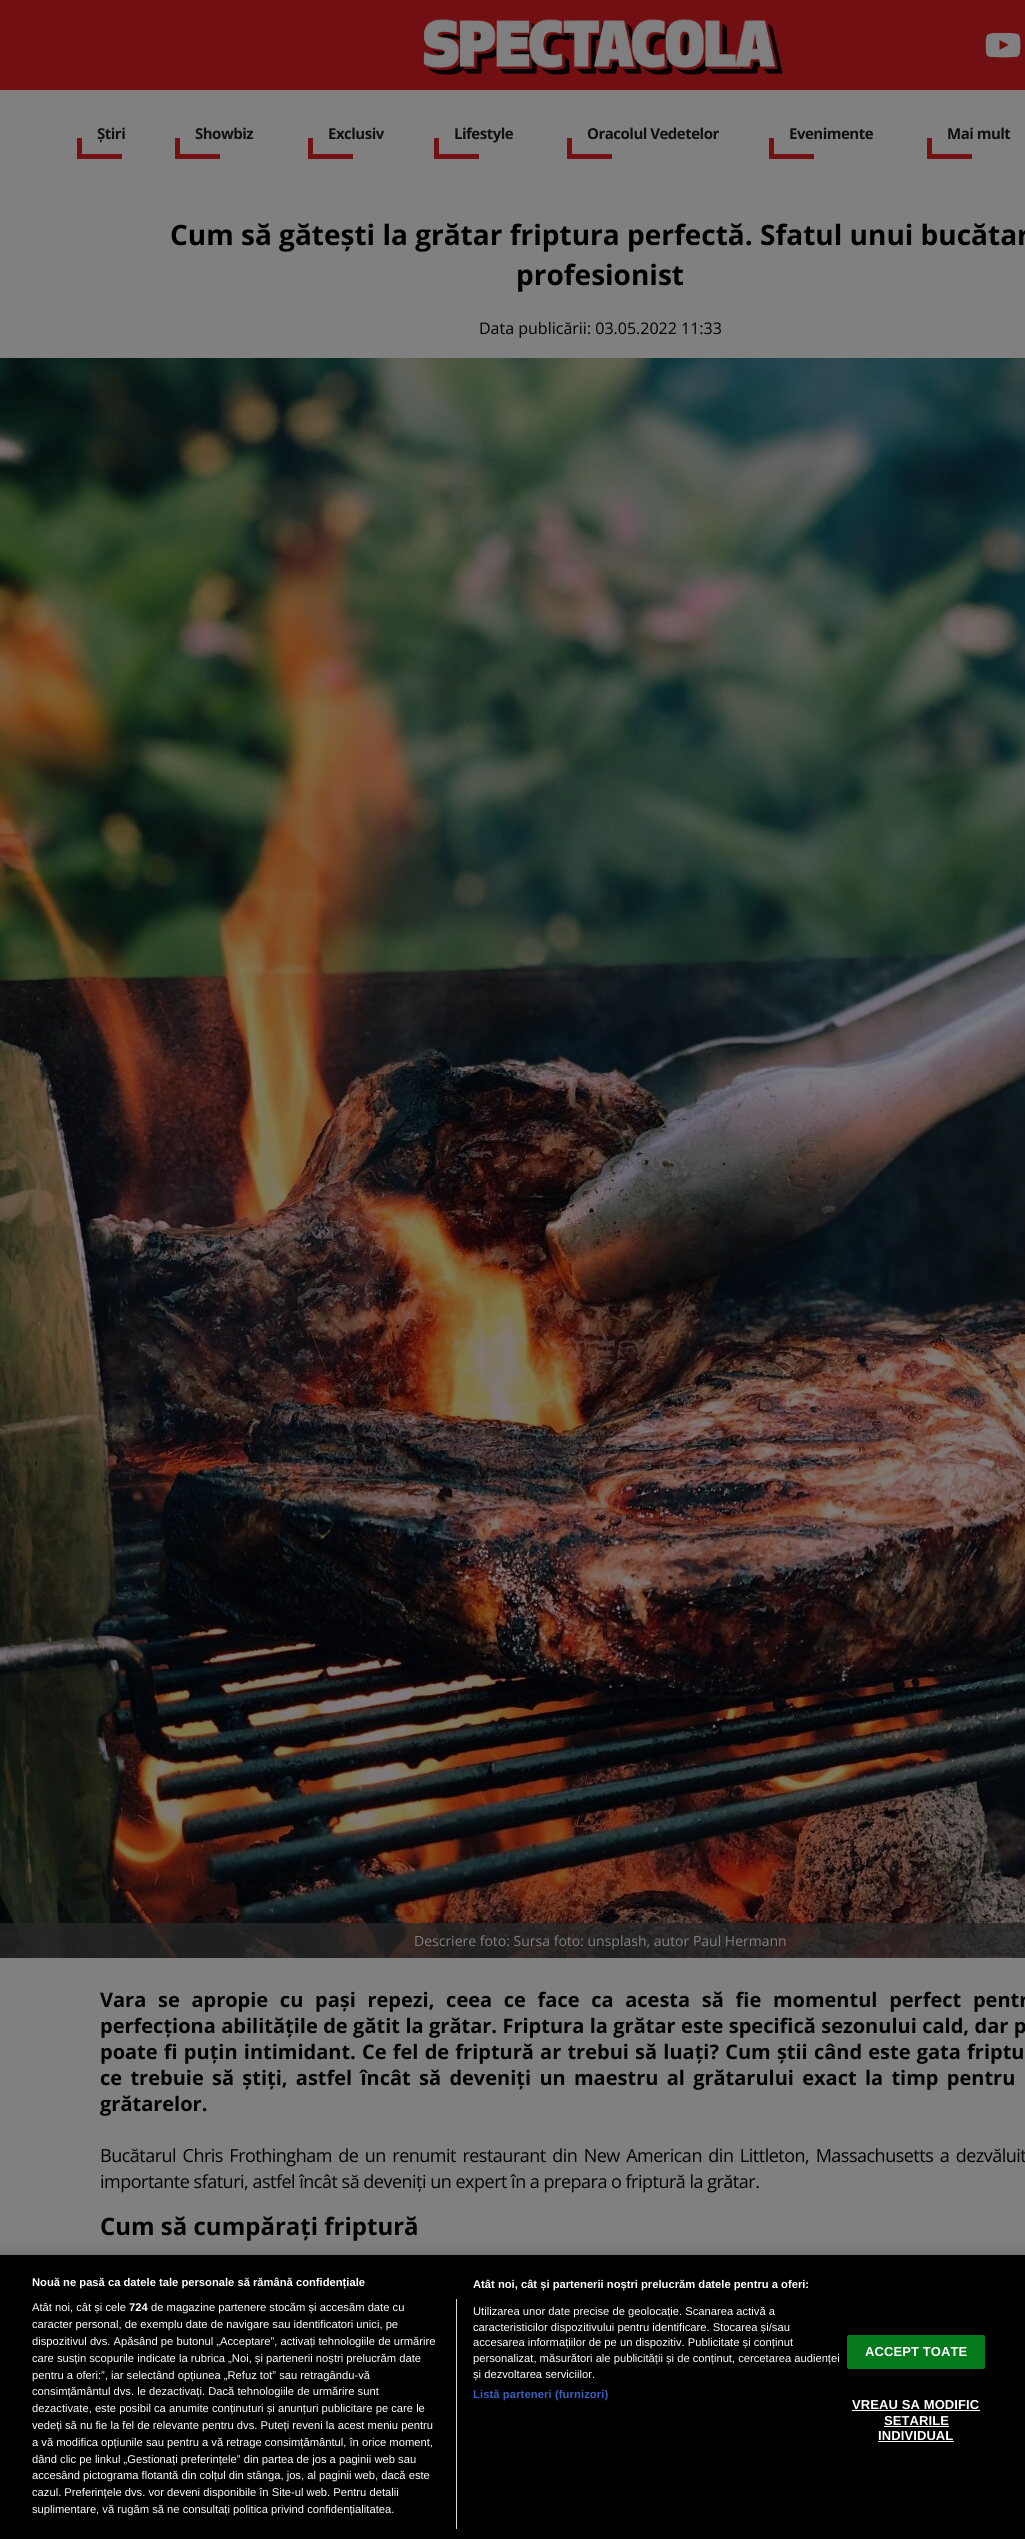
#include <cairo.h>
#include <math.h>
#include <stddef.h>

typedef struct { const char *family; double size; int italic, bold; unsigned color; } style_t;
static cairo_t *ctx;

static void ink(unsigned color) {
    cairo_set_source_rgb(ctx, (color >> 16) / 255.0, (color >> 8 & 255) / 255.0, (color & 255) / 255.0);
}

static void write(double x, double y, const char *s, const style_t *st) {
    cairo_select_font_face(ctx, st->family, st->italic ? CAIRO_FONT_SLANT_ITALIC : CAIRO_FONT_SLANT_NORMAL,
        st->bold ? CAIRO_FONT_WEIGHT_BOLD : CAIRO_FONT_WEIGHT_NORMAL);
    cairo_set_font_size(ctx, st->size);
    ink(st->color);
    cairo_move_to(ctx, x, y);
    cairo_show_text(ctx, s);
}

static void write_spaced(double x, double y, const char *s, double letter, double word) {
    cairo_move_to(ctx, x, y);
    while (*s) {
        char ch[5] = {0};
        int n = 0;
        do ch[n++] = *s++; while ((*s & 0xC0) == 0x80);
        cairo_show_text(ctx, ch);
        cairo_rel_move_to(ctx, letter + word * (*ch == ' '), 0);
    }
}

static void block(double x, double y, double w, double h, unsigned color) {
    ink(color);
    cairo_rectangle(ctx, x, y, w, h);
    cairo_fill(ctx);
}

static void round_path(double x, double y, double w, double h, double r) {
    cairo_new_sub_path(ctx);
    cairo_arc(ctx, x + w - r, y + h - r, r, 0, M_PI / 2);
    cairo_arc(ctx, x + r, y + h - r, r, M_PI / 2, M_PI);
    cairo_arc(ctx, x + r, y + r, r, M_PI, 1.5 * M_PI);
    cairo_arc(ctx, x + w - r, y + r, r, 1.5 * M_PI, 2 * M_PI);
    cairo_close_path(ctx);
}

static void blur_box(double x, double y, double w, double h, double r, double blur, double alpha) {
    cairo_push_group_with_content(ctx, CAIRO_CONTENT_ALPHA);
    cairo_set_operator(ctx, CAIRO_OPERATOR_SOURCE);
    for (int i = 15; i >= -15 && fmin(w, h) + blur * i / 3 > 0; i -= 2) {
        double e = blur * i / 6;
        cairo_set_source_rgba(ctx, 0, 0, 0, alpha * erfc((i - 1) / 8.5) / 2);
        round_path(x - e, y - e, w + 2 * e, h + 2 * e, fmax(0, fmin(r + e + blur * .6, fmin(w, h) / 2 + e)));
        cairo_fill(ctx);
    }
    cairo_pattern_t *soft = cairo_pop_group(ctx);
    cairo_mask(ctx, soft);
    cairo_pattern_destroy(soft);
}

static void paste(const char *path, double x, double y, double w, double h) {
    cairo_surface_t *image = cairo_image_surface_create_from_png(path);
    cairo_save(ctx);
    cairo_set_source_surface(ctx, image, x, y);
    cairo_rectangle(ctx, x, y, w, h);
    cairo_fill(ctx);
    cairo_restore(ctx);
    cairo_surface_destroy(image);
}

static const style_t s1 = {"Open Sans", 28, 0, 1, 0x000000};
static const style_t s2 = {"Open Sans", 16, 0, 0, 0x000000};
static const style_t s3 = {"Open Sans", 14, 0, 0, 0x808080};
static const style_t s4 = {"Open Sans", 20, 0, 1, 0x000000};
static const style_t s5 = {"Open Sans", 24, 0, 1, 0x000000};
static const style_t s6 = {"Liberation Sans", 11.2, 0, 1, 0xffffff};
static const style_t s7 = {"Liberation Sans", 11.2, 0, 0, 0xffffff};

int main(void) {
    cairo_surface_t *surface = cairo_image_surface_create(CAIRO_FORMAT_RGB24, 1025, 2539);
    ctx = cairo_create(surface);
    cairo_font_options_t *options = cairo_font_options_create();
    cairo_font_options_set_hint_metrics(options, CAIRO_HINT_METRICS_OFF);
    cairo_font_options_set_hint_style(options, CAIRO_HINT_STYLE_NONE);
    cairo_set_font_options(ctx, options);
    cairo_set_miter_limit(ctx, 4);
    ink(0x808080);
    cairo_paint(ctx);
    block(0, 0, 1025, 90, 0x720f13);
    paste("pic1.png", 399, 0, 401, 75);
    paste("pic2.png", 985, 33, 36, 25);
    cairo_select_font_face(ctx, "Open Sans", CAIRO_FONT_SLANT_NORMAL, CAIRO_FONT_WEIGHT_BOLD);
    cairo_set_font_size(ctx, 15);
    ink(0x111111);
    write_spaced(97, 139, "Știri", -0.5, 0);
    block(77, 154, 45, 5, 0x721013);
    block(77, 138, 5, 21, 0x721013);
    ink(0x111111);
    write_spaced(195, 139, "Showbiz", -0.5, 0);
    block(175, 154, 45, 5, 0x721013);
    block(175, 138, 5, 21, 0x721013);
    ink(0x111111);
    write_spaced(328, 139, "Exclusiv", -0.5, 0);
    block(308, 154, 45, 5, 0x721013);
    block(308, 138, 5, 21, 0x721013);
    ink(0x111111);
    write_spaced(454, 139, "Lifestyle", -0.5, 0);
    block(434, 154, 45, 5, 0x721013);
    block(434, 138, 5, 21, 0x721013);
    ink(0x111111);
    write_spaced(587, 139, "Oracolul Vedetelor", -0.5, 0);
    block(567, 154, 45, 5, 0x721013);
    block(567, 138, 5, 21, 0x721013);
    ink(0x111111);
    write_spaced(789, 139, "Evenimente", -0.5, 0);
    block(769, 154, 45, 5, 0x721013);
    block(769, 138, 5, 21, 0x721013);
    ink(0x111111);
    write_spaced(947, 139, "Mai mult", -0.5, 0);
    block(927, 154, 45, 5, 0x721013);
    block(927, 138, 5, 21, 0x721013);
    write(170, 245, "Cum să gătești la grătar friptura perfectă. Sfatul unui bucătar", &s1);
    write(516, 285, "profesionist", &s1);
    write(479, 334, "Data publicării: 03.05.2022 11:33", &s2);
    paste("pic3.png", 0, 358, 1025, 1600);
    cairo_set_source_rgba(ctx, 0.153, 0.153, 0.153, 0.78);
    cairo_rectangle(ctx, 0, 1923, 1025, 35);
    cairo_fill(ctx);
    write(414, 1946, "Descriere foto: Sursa foto: unsplash, autor Paul Hermann", &s3);
    cairo_select_font_face(ctx, "Open Sans", CAIRO_FONT_SLANT_NORMAL, CAIRO_FONT_WEIGHT_BOLD);
    cairo_set_font_size(ctx, 20);
    ink(0x000000);
    write_spaced(100, 2007, "Vara se apropie cu pași repezi, ceea ce face ca acesta să fie momentul perfect pentr", 0, 6.5);
    write_spaced(100, 2033, "perfecționa abilitățile de gătit la grătar. Friptura la grătar este specifică sezonului cald, dar p", 0, 0.25);
    write_spaced(100, 2059, "poate fi puțin intimidant. Ce fel de friptură ar trebui să luați? Cum știi când este gata friptu", 0, 1);
    write_spaced(100, 2085, "ce trebuie să știți, astfel încât să deveniți un maestru al grătarului exact la timp pentru", 0, 3.1);
    write(100, 2111, "grătarelor.", &s4);
    cairo_select_font_face(ctx, "Open Sans", CAIRO_FONT_SLANT_NORMAL, CAIRO_FONT_WEIGHT_NORMAL);
    cairo_set_font_size(ctx, 18);
    write_spaced(100, 2162, "Bucătarul Chris Frothingham de un renumit restaurant din New American din Littleton, Massachusetts a dezvăluit", -0.5, 2.25);
    write_spaced(100, 2188, "importante sfaturi, astfel încât să deveniți un expert în a prepara o friptură la grătar.", -0.5, 0);
    write(100, 2235, "Cum să cumpărați friptură", &s5);
    ink(0x000000);
    blur_box(0, 2255, 1025, 284, 0, 9, 0.2);
    block(0, 2255, 1025, 284, 0x000000);
    write(32, 2286, "Nouă ne pasă ca datele tale personale să rămână confidențiale", &s6);
    write(473, 2288, "Atât noi, cât și partenerii noștri prelucrăm datele pentru a oferi:", &s6);
    write(473, 2315, "Utilizarea unor date precise de geolocație. Scanarea activă a", &s7);
    write(473, 2331, "caracteristicilor dispozitivului pentru identificare. Stocarea și/sau", &s7);
    write(473, 2346, "accesarea informațiilor de pe un dispozitiv. Publicitate și conținut", &s7);
    write(473, 2362, "personalizat, măsurători ale publicității și de conținut, cercetarea audienței", &s7);
    write(473, 2378, "și dezvoltarea serviciilor.", &s7);
    cairo_select_font_face(ctx, "Liberation Sans", CAIRO_FONT_SLANT_NORMAL, CAIRO_FONT_WEIGHT_BOLD);
    ink(0x3860be);
    write_spaced(473, 2398, "Listă parteneri (furnizori)", 0.1, 0);
    block(456, 2299, 1, 230, 0xd8d8d8);
    write(32, 2311, "Atât noi, cât și cele", &s7);
    write(129, 2311, "724", &s6);
    write(151, 2311, "de magazine partenere stocăm și accesăm date cu", &s7);
    write(32, 2328, "caracter personal, de exemplu date de navigare sau identificatori unici, pe", &s7);
    write(32, 2345, "dispozitivul dvs. Apăsând pe butonul „Acceptare”, activați tehnologiile de urmărire", &s7);
    write(32, 2362, "care susțin scopurile indicate la rubrica „Noi, și partenerii noștri prelucrăm date", &s7);
    write(32, 2379, "pentru a oferi:”, iar selectând opțiunea „Refuz tot” sau retragându-vă", &s7);
    write(32, 2395, "consimțământul dvs. le dezactivați. Dacă tehnologiile de urmărire sunt", &s7);
    write(32, 2412, "dezactivate, este posibil ca anumite conținuturi și anunțuri publicitare pe care le", &s7);
    write(32, 2429, "vedeți să nu fie la fel de relevante pentru dvs. Puteți reveni la acest meniu pentru", &s7);
    write(32, 2446, "a vă modifica opțiunile sau pentru a vă retrage consimțământul, în orice moment,", &s7);
    write(32, 2463, "dând clic pe linkul „Gestionați preferințele” din partea de jos a paginii web sau", &s7);
    write(32, 2479, "accesând pictograma flotantă din colțul din stânga, jos, al paginii web, dacă este", &s7);
    write(32, 2496, "cazul. Preferințele dvs. vor deveni disponibile în Site-ul web. Pentru detalii", &s7);
    write(32, 2513, "suplimentare, vă rugăm să ne consultați politica privind confidențialitatea.", &s7);
    ink(0x057a1d);
    round_path(847.5, 2335.5, 137, 33, 1.5);
    cairo_fill_preserve(ctx);
    cairo_set_line_width(ctx, 1);
    cairo_stroke(ctx);
    cairo_select_font_face(ctx, "Liberation Sans", CAIRO_FONT_SLANT_NORMAL, CAIRO_FONT_WEIGHT_BOLD);
    cairo_set_font_size(ctx, 13);
    ink(0xffffff);
    write_spaced(865, 2356, "ACCEPT TOATE", 0.1, 0);
    write_spaced(852, 2409, "VREAU SA MODIFIC", 0.1, 0);
    block(852, 2410, 128, 1, 0xffffff);
    write_spaced(884, 2425, "SETARILE", 0.1, 0);
    block(884, 2426, 65, 1, 0xffffff);
    write_spaced(878, 2440, "INDIVIDUAL", 0.1, 0);
    block(878, 2441, 76, 1, 0xffffff);
    cairo_surface_write_to_png(surface, "screenshot.png");
    cairo_font_options_destroy(options);
    cairo_destroy(ctx);
    cairo_surface_destroy(surface);
    return 0;
}
